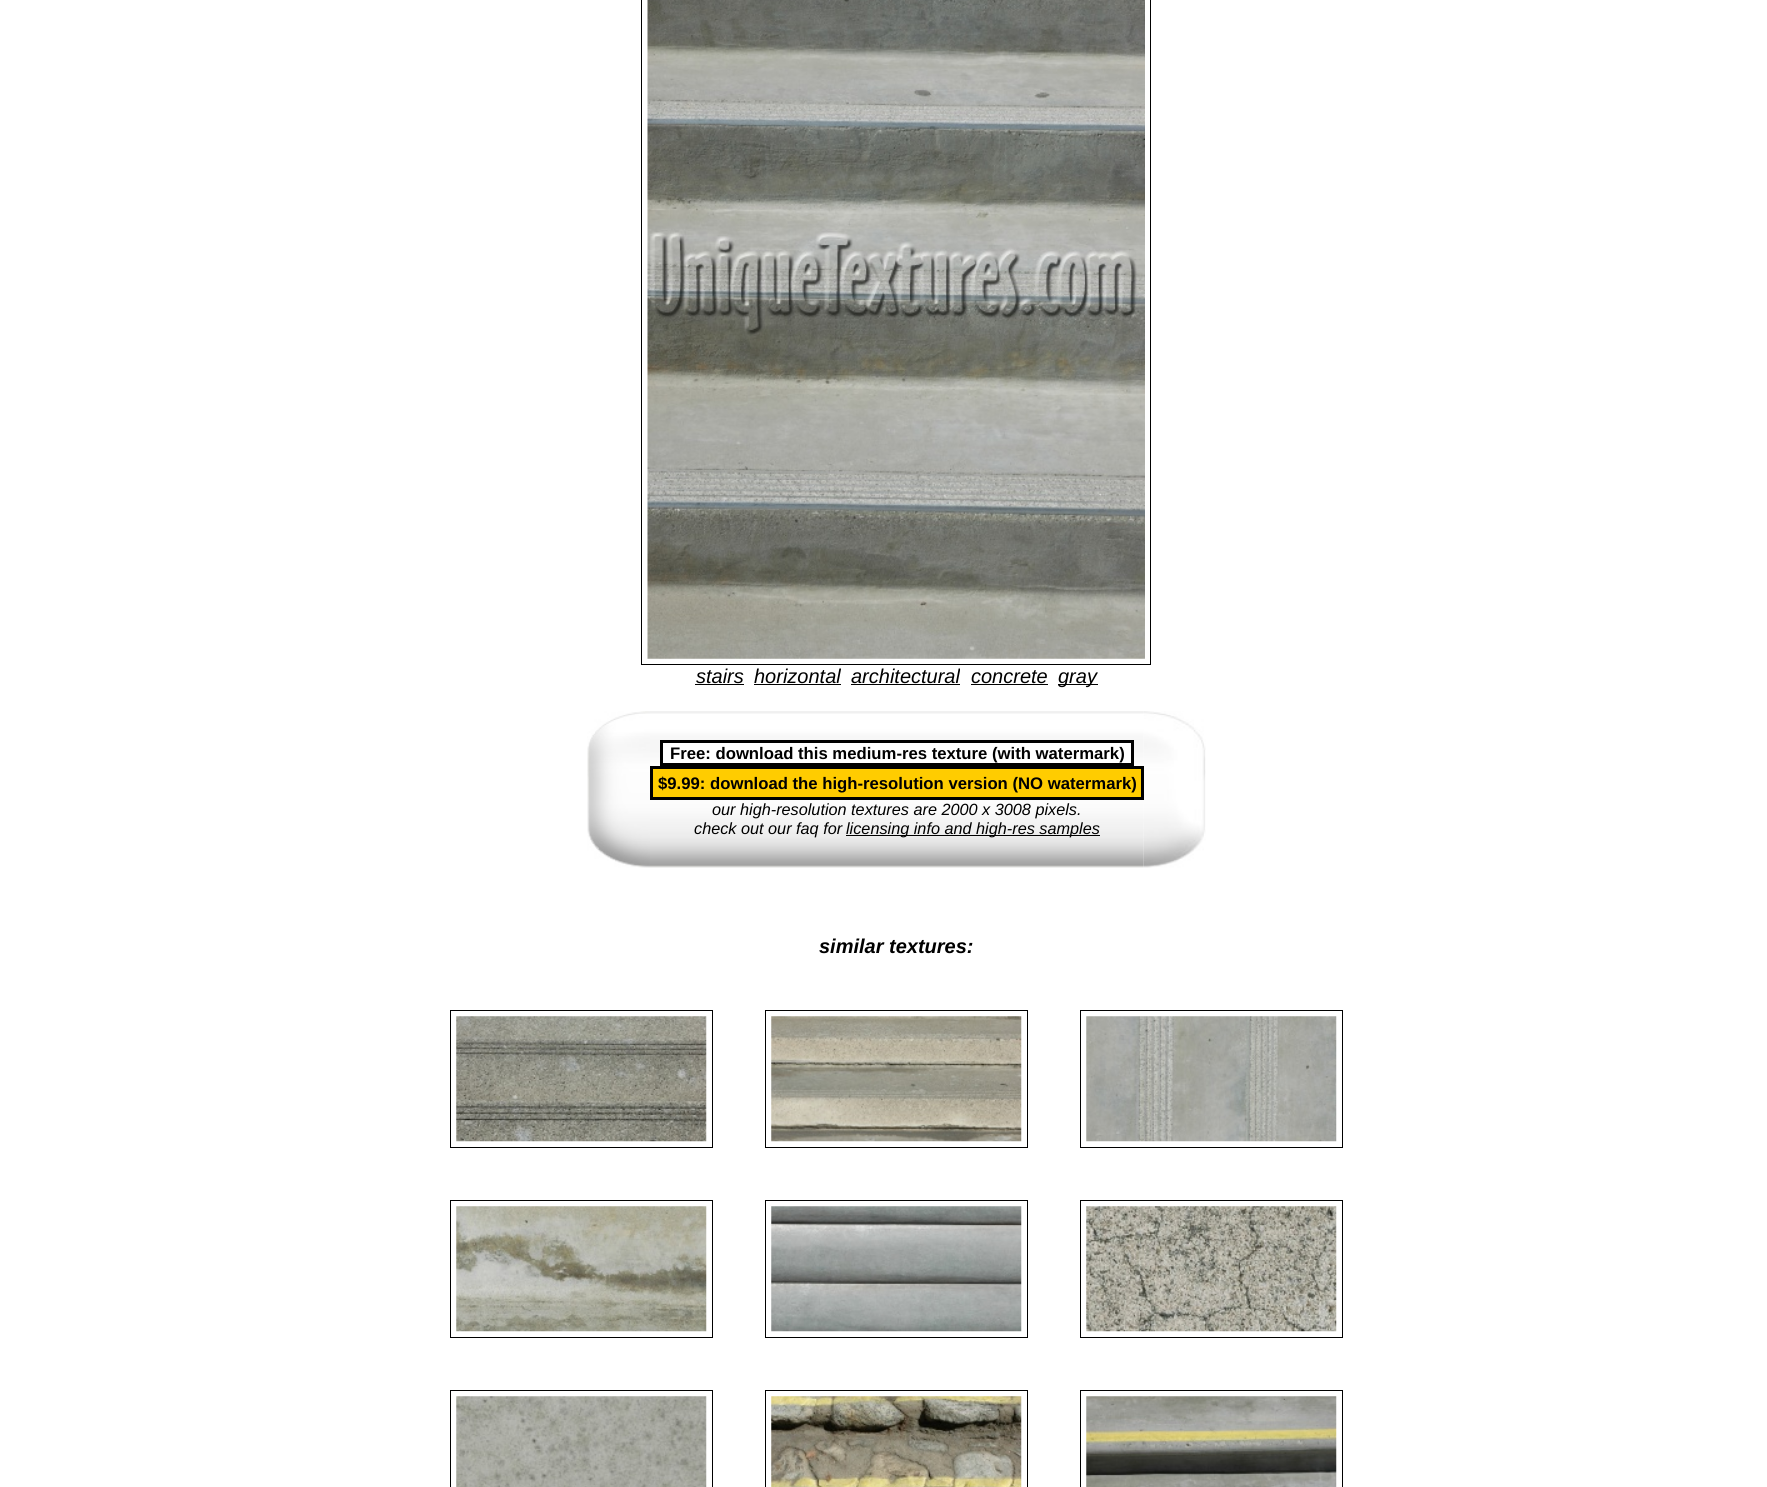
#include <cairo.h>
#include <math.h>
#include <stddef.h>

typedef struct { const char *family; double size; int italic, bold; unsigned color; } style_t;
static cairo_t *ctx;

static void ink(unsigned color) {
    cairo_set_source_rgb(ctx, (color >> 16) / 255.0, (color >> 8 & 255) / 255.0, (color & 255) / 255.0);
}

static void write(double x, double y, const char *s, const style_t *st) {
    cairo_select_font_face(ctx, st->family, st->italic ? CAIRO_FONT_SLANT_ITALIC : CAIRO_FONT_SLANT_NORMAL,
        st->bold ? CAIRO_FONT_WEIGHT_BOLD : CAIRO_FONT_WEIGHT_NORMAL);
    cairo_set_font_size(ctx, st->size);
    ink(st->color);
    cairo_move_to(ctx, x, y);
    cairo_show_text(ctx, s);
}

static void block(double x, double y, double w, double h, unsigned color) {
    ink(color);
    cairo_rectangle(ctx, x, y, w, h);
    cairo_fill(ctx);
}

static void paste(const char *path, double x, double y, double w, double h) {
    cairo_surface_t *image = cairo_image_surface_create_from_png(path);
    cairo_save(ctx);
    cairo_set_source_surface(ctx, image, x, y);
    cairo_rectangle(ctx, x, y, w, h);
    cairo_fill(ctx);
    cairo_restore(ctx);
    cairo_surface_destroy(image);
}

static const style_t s1 = {"Liberation Sans", 20, 1, 0, 0x000000};
static const style_t s2 = {"Liberation Sans", 16.7, 0, 1, 0x000000};
static const style_t s3 = {"Liberation Sans", 16.25, 1, 0, 0x000000};
static const style_t s4 = {"Liberation Sans", 20, 1, 1, 0x000000};

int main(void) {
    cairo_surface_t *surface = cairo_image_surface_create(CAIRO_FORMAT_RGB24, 1767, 1487);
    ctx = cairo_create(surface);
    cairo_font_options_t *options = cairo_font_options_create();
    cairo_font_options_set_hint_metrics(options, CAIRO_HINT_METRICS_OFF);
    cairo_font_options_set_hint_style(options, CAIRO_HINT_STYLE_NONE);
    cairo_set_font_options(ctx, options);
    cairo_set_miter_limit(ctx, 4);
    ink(0xffffff);
    cairo_paint(ctx);
    cairo_rectangle(ctx, 641.5, -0.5, 509, 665);
    ink(0x000000);
    cairo_set_line_width(ctx, 1);
    cairo_stroke(ctx);
    paste("pic1.png", 647, 0, 498, 659);
    write(696, 683, "stairs", &s1);
    block(695, 684, 49, 1, 0x000000);
    write(754, 683, "horizontal", &s1);
    block(754, 684, 87, 1, 0x000000);
    write(851, 683, "architectural", &s1);
    block(851, 684, 109, 1, 0x000000);
    write(971, 683, "concrete", &s1);
    block(971, 684, 77, 1, 0x000000);
    block(1058, 684, 40, 1, 0x000000);
    write(1058, 683, "gray", &s1);
    paste("pic2.png", 587, 711, 63, 157);
    paste("pic3.png", 650, 711, 494, 157);
    ink(0xffffff);
    cairo_rectangle(ctx, 661.5, 741.5, 471, 23);
    cairo_fill_preserve(ctx);
    ink(0x000000);
    cairo_set_line_width(ctx, 3);
    cairo_stroke(ctx);
    write(670, 759, "Free: download this medium-res texture (with watermark)", &s2);
    paste("pic4.png", 1143, 711, 63, 157);
    ink(0xffcc00);
    cairo_rectangle(ctx, 651.5, 767.5, 491, 31);
    cairo_fill_preserve(ctx);
    ink(0x000000);
    cairo_stroke(ctx);
    write(658, 789, "$9.99: download the high-resolution version (NO watermark)", &s2);
    write(712, 815, "our high-resolution textures are 2000 x 3008 pixels.", &s3);
    write(694, 834, "check out our faq for", &s3);
    block(846, 835, 254, 1, 0x000000);
    write(846, 834, "licensing info and high-res samples", &s3);
    write(819, 953, "similar textures:", &s4);
    cairo_rectangle(ctx, 450.5, 1010.5, 262, 137);
    cairo_set_line_width(ctx, 1);
    cairo_stroke(ctx);
    paste("pic5.png", 456, 1016, 251, 126);
    cairo_rectangle(ctx, 765.5, 1010.5, 262, 137);
    cairo_stroke(ctx);
    paste("pic6.png", 771, 1016, 251, 126);
    cairo_rectangle(ctx, 1080.5, 1010.5, 262, 137);
    cairo_stroke(ctx);
    paste("pic7.png", 1086, 1016, 251, 126);
    cairo_rectangle(ctx, 450.5, 1200.5, 262, 137);
    cairo_stroke(ctx);
    paste("pic8.png", 456, 1206, 251, 126);
    cairo_rectangle(ctx, 765.5, 1200.5, 262, 137);
    cairo_stroke(ctx);
    paste("pic9.png", 771, 1206, 251, 126);
    cairo_rectangle(ctx, 1080.5, 1200.5, 262, 137);
    cairo_stroke(ctx);
    paste("pic10.png", 1086, 1206, 251, 126);
    cairo_rectangle(ctx, 450.5, 1390.5, 262, 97);
    cairo_stroke(ctx);
    paste("pic11.png", 456, 1396, 251, 91);
    cairo_rectangle(ctx, 765.5, 1390.5, 262, 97);
    cairo_stroke(ctx);
    paste("pic12.png", 771, 1396, 251, 91);
    cairo_rectangle(ctx, 1080.5, 1390.5, 262, 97);
    cairo_stroke(ctx);
    paste("pic13.png", 1086, 1396, 251, 91);
    cairo_surface_write_to_png(surface, "screenshot.png");
    cairo_font_options_destroy(options);
    cairo_destroy(ctx);
    cairo_surface_destroy(surface);
    return 0;
}
